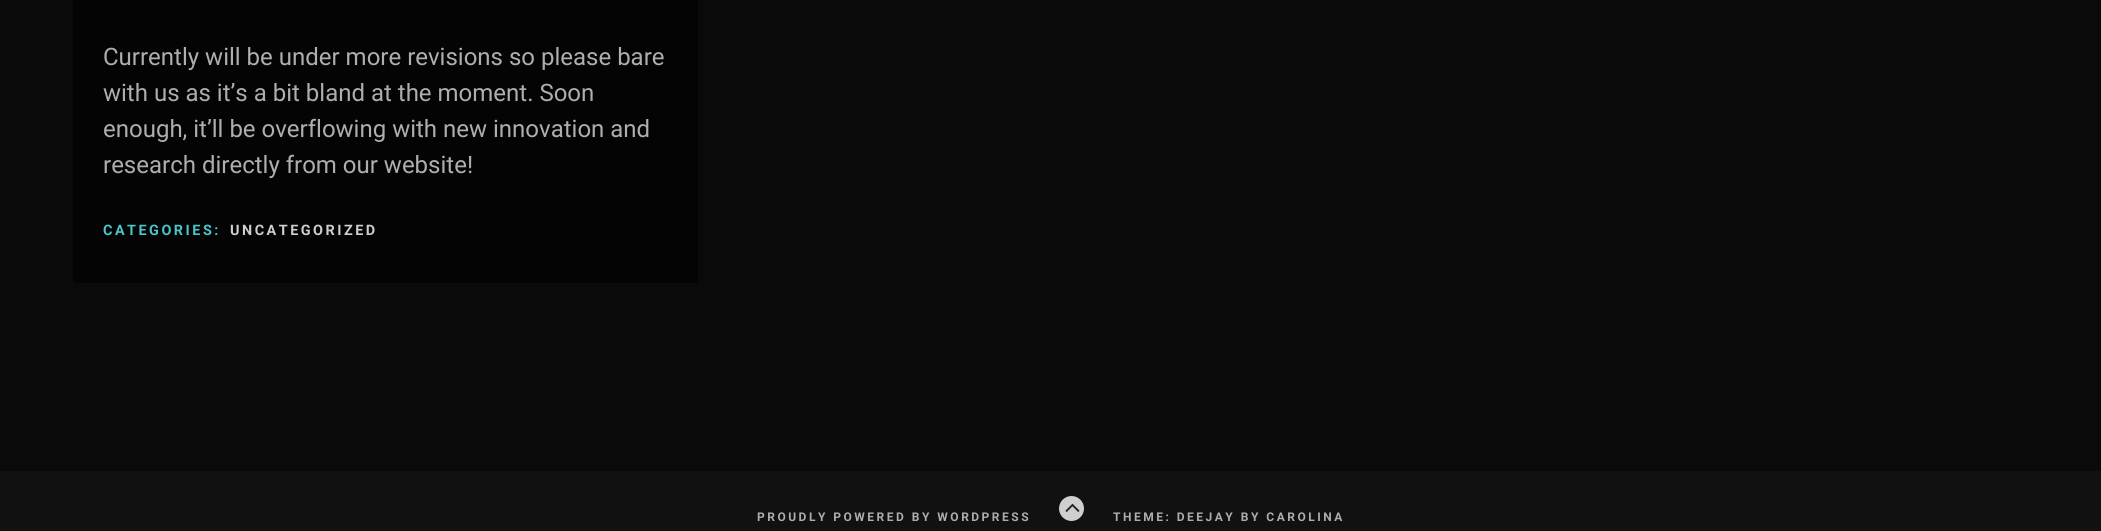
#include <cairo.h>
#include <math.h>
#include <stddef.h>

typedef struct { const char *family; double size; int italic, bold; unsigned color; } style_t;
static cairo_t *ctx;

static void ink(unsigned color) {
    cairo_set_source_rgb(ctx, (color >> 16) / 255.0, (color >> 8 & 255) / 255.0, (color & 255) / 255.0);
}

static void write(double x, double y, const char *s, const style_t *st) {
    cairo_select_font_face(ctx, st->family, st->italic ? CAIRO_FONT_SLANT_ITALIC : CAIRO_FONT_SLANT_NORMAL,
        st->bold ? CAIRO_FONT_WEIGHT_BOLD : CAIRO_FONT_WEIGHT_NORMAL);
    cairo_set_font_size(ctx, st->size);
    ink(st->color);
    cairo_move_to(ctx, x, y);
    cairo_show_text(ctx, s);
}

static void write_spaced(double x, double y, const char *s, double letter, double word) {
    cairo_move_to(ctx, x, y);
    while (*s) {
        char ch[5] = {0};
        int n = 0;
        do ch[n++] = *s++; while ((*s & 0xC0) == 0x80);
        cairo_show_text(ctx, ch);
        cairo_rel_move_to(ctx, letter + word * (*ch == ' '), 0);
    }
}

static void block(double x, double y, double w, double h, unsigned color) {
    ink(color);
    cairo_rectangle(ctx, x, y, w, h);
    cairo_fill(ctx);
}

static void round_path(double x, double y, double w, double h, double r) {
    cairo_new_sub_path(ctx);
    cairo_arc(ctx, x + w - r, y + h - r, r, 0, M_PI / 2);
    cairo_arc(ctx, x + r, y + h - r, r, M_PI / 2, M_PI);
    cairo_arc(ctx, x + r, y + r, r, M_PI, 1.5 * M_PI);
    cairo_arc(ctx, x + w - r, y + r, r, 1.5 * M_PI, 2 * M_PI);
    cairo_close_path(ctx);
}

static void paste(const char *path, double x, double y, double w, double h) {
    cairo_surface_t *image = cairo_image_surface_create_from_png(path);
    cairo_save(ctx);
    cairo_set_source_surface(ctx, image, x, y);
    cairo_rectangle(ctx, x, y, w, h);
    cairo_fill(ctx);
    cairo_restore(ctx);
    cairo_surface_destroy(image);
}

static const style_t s1 = {"Roboto", 24, 0, 0, 0xaeaeae};

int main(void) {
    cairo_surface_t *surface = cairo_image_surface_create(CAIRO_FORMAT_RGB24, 2101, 531);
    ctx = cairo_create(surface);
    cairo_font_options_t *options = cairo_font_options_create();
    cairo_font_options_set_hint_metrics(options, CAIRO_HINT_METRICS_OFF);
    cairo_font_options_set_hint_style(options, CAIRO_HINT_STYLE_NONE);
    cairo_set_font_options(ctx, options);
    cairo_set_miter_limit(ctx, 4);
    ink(0x0a0a0a);
    cairo_paint(ctx);
    ink(0x040404);
    round_path(73, -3, 625, 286, 2.5);
    cairo_fill(ctx);
    write(103, 65, "Currently will be under more revisions so please bare", &s1);
    write(103, 101, "with us as it’s a bit bland at the moment. Soon", &s1);
    write(103, 137, "enough, it’ll be overflowing with new innovation and", &s1);
    write(103, 173, "research directly from our website!", &s1);
    cairo_select_font_face(ctx, "Roboto", CAIRO_FONT_SLANT_NORMAL, CAIRO_FONT_WEIGHT_BOLD);
    cairo_set_font_size(ctx, 14.4);
    ink(0x4ac6c9);
    write_spaced(103, 235, "CATEGORIES:", 2.5, 0);
    ink(0xcfcfcf);
    write_spaced(230, 235, "UNCATEGORIZED", 2.5, 0);
    block(0, 471, 2101, 60, 0x111111);
    cairo_set_font_size(ctx, 12);
    ink(0xaeaeae);
    write_spaced(757, 521, "PROUDLY POWERED BY WORDPRESS", 2.5, 0);
    ink(0xcfcfcf);
    cairo_new_path(ctx);
    cairo_arc(ctx, 1071.5, 508.5, 12.5, 0, 2 * M_PI);
    cairo_fill(ctx);
    paste("pic1.png", 1065, 503, 15, 9);
    ink(0xaeaeae);
    write_spaced(1113, 521, "THEME: DEEJAY BY CAROLINA", 2.5, 0);
    cairo_surface_write_to_png(surface, "screenshot.png");
    cairo_font_options_destroy(options);
    cairo_destroy(ctx);
    cairo_surface_destroy(surface);
    return 0;
}
